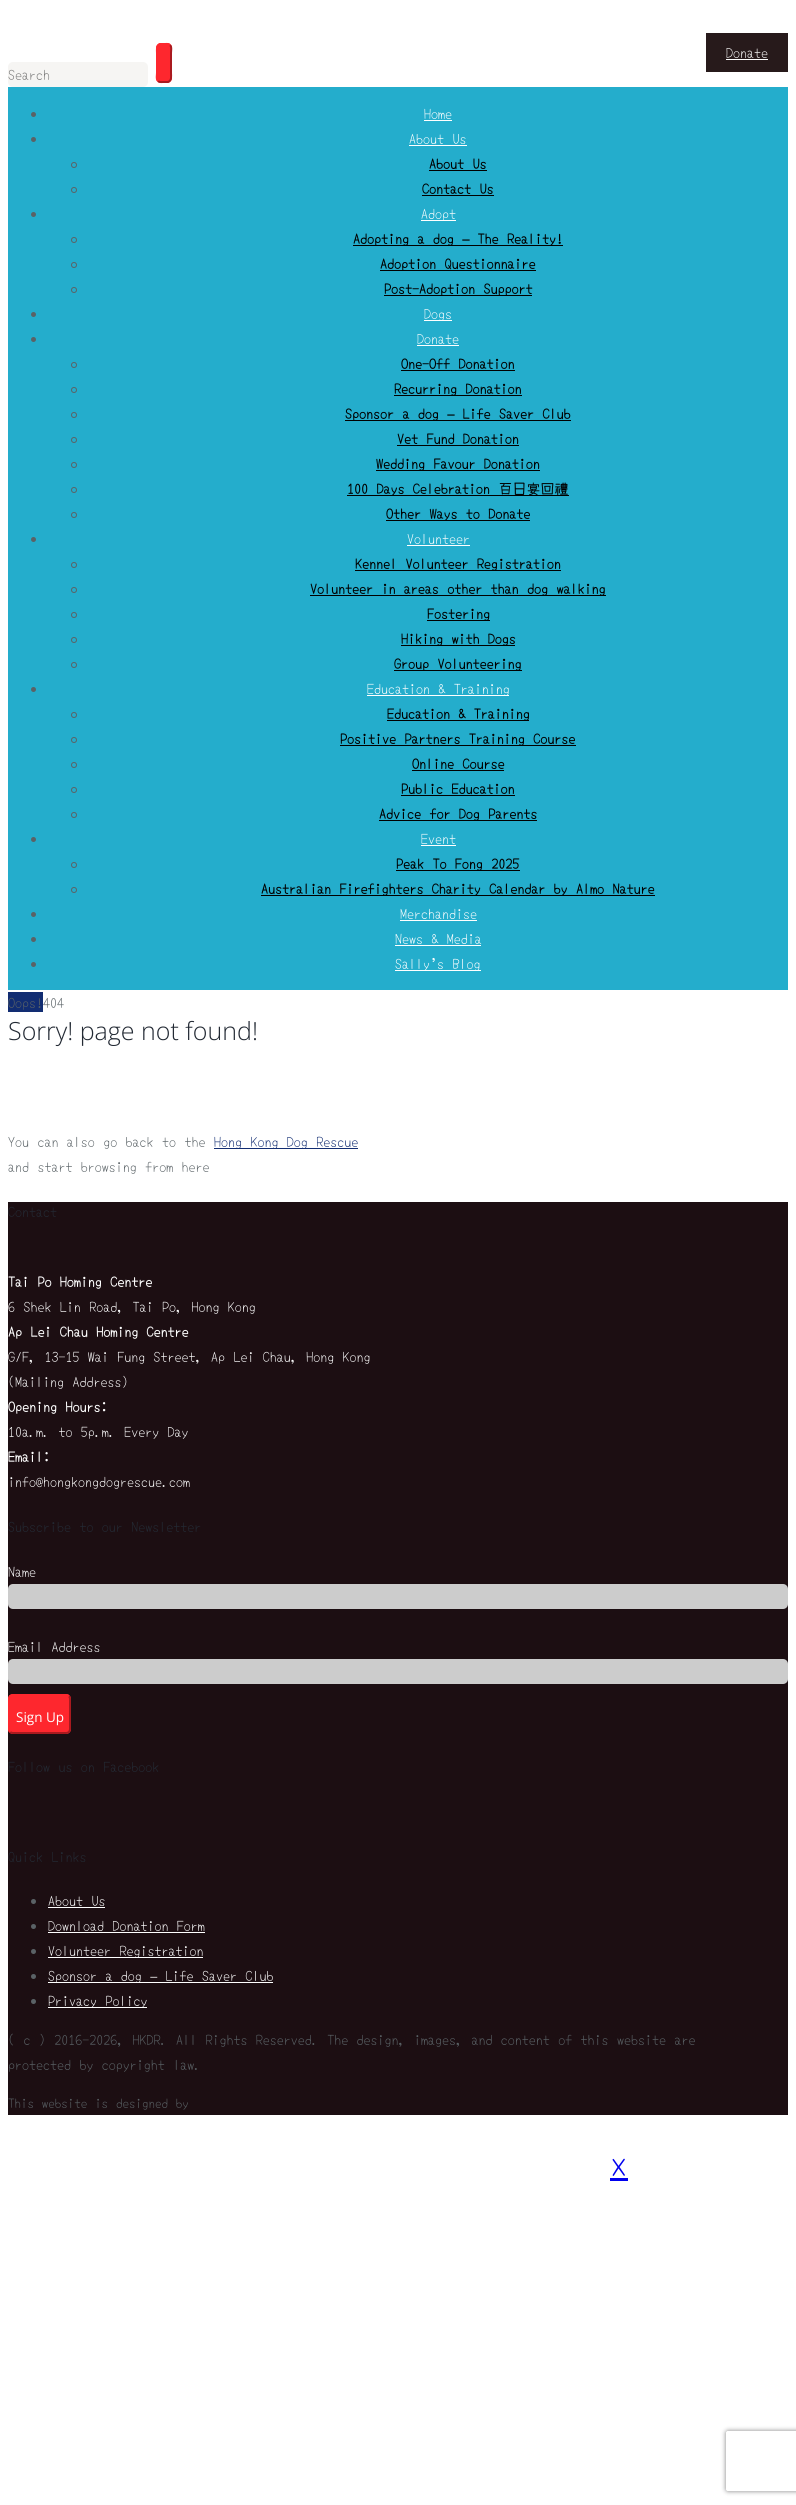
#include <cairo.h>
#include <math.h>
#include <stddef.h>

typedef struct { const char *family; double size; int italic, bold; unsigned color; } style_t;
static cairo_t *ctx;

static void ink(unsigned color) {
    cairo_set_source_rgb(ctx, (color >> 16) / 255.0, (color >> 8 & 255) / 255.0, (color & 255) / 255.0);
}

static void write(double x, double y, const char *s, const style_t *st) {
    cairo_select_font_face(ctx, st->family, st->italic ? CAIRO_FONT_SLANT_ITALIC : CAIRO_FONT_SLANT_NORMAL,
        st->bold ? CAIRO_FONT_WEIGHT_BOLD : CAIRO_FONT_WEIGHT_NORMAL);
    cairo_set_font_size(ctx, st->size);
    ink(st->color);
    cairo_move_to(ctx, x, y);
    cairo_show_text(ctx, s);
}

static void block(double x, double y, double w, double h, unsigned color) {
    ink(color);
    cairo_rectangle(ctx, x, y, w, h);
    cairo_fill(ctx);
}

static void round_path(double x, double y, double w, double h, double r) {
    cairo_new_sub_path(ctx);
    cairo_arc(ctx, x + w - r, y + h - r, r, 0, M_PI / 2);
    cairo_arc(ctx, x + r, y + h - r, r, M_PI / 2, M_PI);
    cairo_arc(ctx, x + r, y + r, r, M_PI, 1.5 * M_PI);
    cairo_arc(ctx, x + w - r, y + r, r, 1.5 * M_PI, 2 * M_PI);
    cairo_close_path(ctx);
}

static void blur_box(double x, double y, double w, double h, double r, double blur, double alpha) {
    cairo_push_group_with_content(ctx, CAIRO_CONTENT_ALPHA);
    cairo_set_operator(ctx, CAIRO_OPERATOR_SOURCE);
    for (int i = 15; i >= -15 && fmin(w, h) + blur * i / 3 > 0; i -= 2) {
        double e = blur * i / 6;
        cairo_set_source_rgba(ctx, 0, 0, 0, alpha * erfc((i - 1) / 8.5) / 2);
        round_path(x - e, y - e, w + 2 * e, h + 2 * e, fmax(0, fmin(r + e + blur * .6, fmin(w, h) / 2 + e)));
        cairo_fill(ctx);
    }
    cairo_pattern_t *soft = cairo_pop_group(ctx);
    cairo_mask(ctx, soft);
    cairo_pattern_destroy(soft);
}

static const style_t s1 = {"Yomogi", 14, 0, 0, 0xffffff};
static const style_t s2 = {"Yomogi", 14, 0, 0, 0x757575};
static const style_t s3 = {"Yomogi", 14, 0, 1, 0x000000};
static const style_t s4 = {"Yomogi", 14, 0, 0, 0x5a6266};
static const style_t s5 = {"Open Sans Light", 25, 0, 0, 0x232a34};
static const style_t s6 = {"Yomogi", 14, 0, 0, 0x122d72};
static const style_t s7 = {"Yomogi", 14, 0, 0, 0x232a34};
static const style_t s8 = {"Yomogi", 14, 0, 1, 0xffffff};
static const style_t s9 = {"Open Sans", 13.5, 0, 0, 0xffffff};
static const style_t s10 = {"Yomogi", 13, 0, 0, 0x5a6266};
static const style_t s11 = {"Yomogi", 35, 0, 0, 0x0000ee};

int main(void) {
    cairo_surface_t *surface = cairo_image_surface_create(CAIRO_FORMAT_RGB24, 796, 2505);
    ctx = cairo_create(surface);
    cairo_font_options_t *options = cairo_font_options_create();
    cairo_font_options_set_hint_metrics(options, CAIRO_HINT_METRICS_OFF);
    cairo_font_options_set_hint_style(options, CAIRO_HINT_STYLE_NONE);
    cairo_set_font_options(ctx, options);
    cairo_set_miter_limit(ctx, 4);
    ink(0xffffff);
    cairo_paint(ctx);
    block(706, 33, 82, 39, 0x271a1b);
    write(726, 58, "Donate", &s1);
    block(726, 59, 42, 1, 0xffffff);
    ink(0xf6f5f3);
    round_path(8, 62, 140, 25, 5);
    cairo_fill(ctx);
    write(8, 80, "Search", &s2);
    ink(0xfe272e);
    round_path(156, 43, 16, 40, 5);
    cairo_fill(ctx);
    cairo_new_path(ctx);
    cairo_move_to(ctx, 170, 45);
    cairo_curve_to(ctx, 172, 47, 171, 51, 171, 53);
    cairo_line_to(ctx, 171, 73);
    cairo_curve_to(ctx, 171, 76, 172, 80.5, 168, 82);
    cairo_line_to(ctx, 164, 82);
    cairo_curve_to(ctx, 162, 82, 159.5, 82.5, 158, 81);
    ink(0xa91a1f);
    cairo_stroke(ctx);
    cairo_new_path(ctx);
    cairo_move_to(ctx, 158, 81);
    cairo_curve_to(ctx, 156, 79, 157, 75, 157, 73);
    cairo_line_to(ctx, 157, 53);
    cairo_curve_to(ctx, 157, 50, 156, 45.5, 160, 44);
    cairo_line_to(ctx, 164, 44);
    cairo_curve_to(ctx, 166, 44, 168.5, 43.5, 170, 45);
    ink(0xfe272e);
    cairo_stroke(ctx);
    block(8, 87, 780, 903, 0x24adcc);
    ink(0x5a6266);
    cairo_arc(ctx, 33.5, 114.5, 2.5, 0, 2 * M_PI);
    cairo_fill(ctx);
    write(424, 119, "Home", &s1);
    block(424, 120, 28, 1, 0xffffff);
    ink(0x5a6266);
    cairo_new_path(ctx);
    cairo_arc(ctx, 33.5, 139.5, 2.5, 0, 2 * M_PI);
    cairo_fill(ctx);
    write(409, 144, "About Us", &s1);
    block(409, 145, 58, 1, 0xffffff);
    cairo_new_path(ctx);
    cairo_arc(ctx, 74, 165, 2.5, 0, 2 * M_PI);
    ink(0x5a6266);
    cairo_set_line_width(ctx, 1);
    cairo_stroke(ctx);
    write(429, 169, "About Us", &s3);
    block(429, 170, 58, 1, 0x000000);
    cairo_new_path(ctx);
    cairo_arc(ctx, 74, 190, 2.5, 0, 2 * M_PI);
    ink(0x5a6266);
    cairo_stroke(ctx);
    write(422, 194, "Contact Us", &s3);
    block(422, 195, 72, 1, 0x000000);
    ink(0x5a6266);
    cairo_new_path(ctx);
    cairo_arc(ctx, 33.5, 214.5, 2.5, 0, 2 * M_PI);
    cairo_fill(ctx);
    block(421, 220, 35, 1, 0xffffff);
    write(421, 219, "Adopt", &s1);
    cairo_new_path(ctx);
    cairo_arc(ctx, 74, 240, 2.5, 0, 2 * M_PI);
    ink(0x5a6266);
    cairo_stroke(ctx);
    block(353, 245, 210, 1, 0x000000);
    write(353, 244, "Adopting a dog – The Reality!", &s3);
    cairo_new_path(ctx);
    cairo_arc(ctx, 74, 265, 2.5, 0, 2 * M_PI);
    ink(0x5a6266);
    cairo_stroke(ctx);
    block(380, 270, 156, 1, 0x000000);
    write(380, 269, "Adoption Questionnaire", &s3);
    cairo_new_path(ctx);
    cairo_arc(ctx, 74, 290, 2.5, 0, 2 * M_PI);
    ink(0x5a6266);
    cairo_stroke(ctx);
    block(384, 295, 148, 1, 0x000000);
    write(384, 294, "Post-Adoption Support", &s3);
    ink(0x5a6266);
    cairo_new_path(ctx);
    cairo_arc(ctx, 33.5, 314.5, 2.5, 0, 2 * M_PI);
    cairo_fill(ctx);
    block(424, 320, 28, 1, 0xffffff);
    write(424, 319, "Dogs", &s1);
    ink(0x5a6266);
    cairo_new_path(ctx);
    cairo_arc(ctx, 33.5, 339.5, 2.5, 0, 2 * M_PI);
    cairo_fill(ctx);
    write(417, 344, "Donate", &s1);
    block(417, 345, 42, 1, 0xffffff);
    cairo_new_path(ctx);
    cairo_arc(ctx, 74, 365, 2.5, 0, 2 * M_PI);
    ink(0x5a6266);
    cairo_stroke(ctx);
    write(401, 369, "One-Off Donation", &s3);
    block(401, 370, 114, 1, 0x000000);
    cairo_new_path(ctx);
    cairo_arc(ctx, 74, 390, 2.5, 0, 2 * M_PI);
    ink(0x5a6266);
    cairo_stroke(ctx);
    block(394, 395, 128, 1, 0x000000);
    write(394, 394, "Recurring Donation", &s3);
    cairo_new_path(ctx);
    cairo_arc(ctx, 74, 415, 2.5, 0, 2 * M_PI);
    ink(0x5a6266);
    cairo_stroke(ctx);
    block(345, 420, 226, 1, 0x000000);
    write(345, 419, "Sponsor a dog – Life Saver Club", &s3);
    cairo_new_path(ctx);
    cairo_arc(ctx, 74, 440, 2.5, 0, 2 * M_PI);
    ink(0x5a6266);
    cairo_stroke(ctx);
    write(397, 444, "Vet Fund Donation", &s3);
    block(397, 445, 122, 1, 0x000000);
    cairo_new_path(ctx);
    cairo_arc(ctx, 74, 465, 2.5, 0, 2 * M_PI);
    ink(0x5a6266);
    cairo_stroke(ctx);
    block(376, 470, 164, 1, 0x000000);
    write(376, 469, "Wedding Favour Donation", &s3);
    cairo_new_path(ctx);
    cairo_arc(ctx, 74, 490, 2.5, 0, 2 * M_PI);
    ink(0x5a6266);
    cairo_stroke(ctx);
    block(347, 495, 222, 1, 0x000000);
    write(347, 494, "100 Days Celebration 百日宴回禮", &s3);
    cairo_new_path(ctx);
    cairo_arc(ctx, 74, 515, 2.5, 0, 2 * M_PI);
    ink(0x5a6266);
    cairo_stroke(ctx);
    block(386, 520, 144, 1, 0x000000);
    write(386, 519, "Other Ways to Donate", &s3);
    ink(0x5a6266);
    cairo_new_path(ctx);
    cairo_arc(ctx, 33.5, 539.5, 2.5, 0, 2 * M_PI);
    cairo_fill(ctx);
    write(407, 544, "Volunteer", &s1);
    block(407, 545, 63, 1, 0xffffff);
    cairo_new_path(ctx);
    cairo_arc(ctx, 74, 565, 2.5, 0, 2 * M_PI);
    ink(0x5a6266);
    cairo_stroke(ctx);
    block(355, 570, 206, 1, 0x000000);
    write(355, 569, "Kennel Volunteer Registration", &s3);
    cairo_new_path(ctx);
    cairo_arc(ctx, 74, 590, 2.5, 0, 2 * M_PI);
    ink(0x5a6266);
    cairo_stroke(ctx);
    block(310, 595, 296, 1, 0x000000);
    write(310, 594, "Volunteer in areas other than dog walking", &s3);
    cairo_new_path(ctx);
    cairo_arc(ctx, 74, 615, 2.5, 0, 2 * M_PI);
    ink(0x5a6266);
    cairo_stroke(ctx);
    block(427, 620, 63, 1, 0x000000);
    write(427, 619, "Fostering", &s3);
    cairo_new_path(ctx);
    cairo_arc(ctx, 74, 640, 2.5, 0, 2 * M_PI);
    ink(0x5a6266);
    cairo_stroke(ctx);
    block(401, 645, 114, 1, 0x000000);
    write(401, 644, "Hiking with Dogs", &s3);
    cairo_new_path(ctx);
    cairo_arc(ctx, 74, 665, 2.5, 0, 2 * M_PI);
    ink(0x5a6266);
    cairo_stroke(ctx);
    block(394, 670, 128, 1, 0x000000);
    write(394, 669, "Group Volunteering", &s3);
    ink(0x5a6266);
    cairo_new_path(ctx);
    cairo_arc(ctx, 33.5, 689.5, 2.5, 0, 2 * M_PI);
    cairo_fill(ctx);
    block(367, 695, 142, 1, 0xffffff);
    write(367, 694, "Education & Training", &s1);
    cairo_new_path(ctx);
    cairo_arc(ctx, 74, 715, 2.5, 0, 2 * M_PI);
    ink(0x5a6266);
    cairo_stroke(ctx);
    block(387, 720, 142, 1, 0x000000);
    write(387, 719, "Education & Training", &s3);
    cairo_new_path(ctx);
    cairo_arc(ctx, 74, 740, 2.5, 0, 2 * M_PI);
    ink(0x5a6266);
    cairo_stroke(ctx);
    block(340, 745, 236, 1, 0x000000);
    write(340, 744, "Positive Partners Training Course", &s3);
    cairo_new_path(ctx);
    cairo_arc(ctx, 74, 765, 2.5, 0, 2 * M_PI);
    ink(0x5a6266);
    cairo_stroke(ctx);
    write(412, 769, "Online Course", &s3);
    block(412, 770, 92, 1, 0x000000);
    cairo_new_path(ctx);
    cairo_arc(ctx, 74, 790, 2.5, 0, 2 * M_PI);
    ink(0x5a6266);
    cairo_stroke(ctx);
    write(401, 794, "Public Education", &s3);
    block(401, 795, 114, 1, 0x000000);
    cairo_new_path(ctx);
    cairo_arc(ctx, 74, 815, 2.5, 0, 2 * M_PI);
    ink(0x5a6266);
    cairo_stroke(ctx);
    block(379, 820, 158, 1, 0x000000);
    write(379, 819, "Advice for Dog Parents", &s3);
    ink(0x5a6266);
    cairo_new_path(ctx);
    cairo_arc(ctx, 33.5, 839.5, 2.5, 0, 2 * M_PI);
    cairo_fill(ctx);
    write(421, 844, "Event", &s1);
    block(421, 845, 35, 1, 0xffffff);
    cairo_new_path(ctx);
    cairo_arc(ctx, 74, 865, 2.5, 0, 2 * M_PI);
    ink(0x5a6266);
    cairo_stroke(ctx);
    block(396, 870, 124, 1, 0x000000);
    write(396, 869, "Peak To Fong 2025", &s3);
    cairo_new_path(ctx);
    cairo_arc(ctx, 74, 890, 2.5, 0, 2 * M_PI);
    ink(0x5a6266);
    cairo_stroke(ctx);
    block(261, 895, 394, 1, 0x000000);
    write(261, 894, "Australian Firefighters Charity Calendar by Almo Nature", &s3);
    ink(0x5a6266);
    cairo_new_path(ctx);
    cairo_arc(ctx, 33.5, 914.5, 2.5, 0, 2 * M_PI);
    cairo_fill(ctx);
    write(400, 919, "Merchandise", &s1);
    block(400, 920, 77, 1, 0xffffff);
    ink(0x5a6266);
    cairo_new_path(ctx);
    cairo_arc(ctx, 33.5, 939.5, 2.5, 0, 2 * M_PI);
    cairo_fill(ctx);
    write(395, 944, "News & Media", &s1);
    block(395, 945, 86, 1, 0xffffff);
    ink(0x5a6266);
    cairo_new_path(ctx);
    cairo_arc(ctx, 33.5, 964.5, 2.5, 0, 2 * M_PI);
    cairo_fill(ctx);
    block(395, 970, 86, 1, 0xffffff);
    write(395, 969, "Sally’s Blog", &s1);
    block(8, 992, 35, 20, 0x122d72);
    write(8, 1008, "Oops!404", &s4);
    write(8, 1040, "Sorry! page not found!", &s5);
    write(8, 1147, "You can also go back to the", &s4);
    block(214, 1148, 144, 1, 0x122d72);
    write(214, 1147, "Hong Kong Dog Rescue", &s6);
    write(8, 1172, "and start browsing from here", &s4);
    block(8, 1202, 780, 913, 0x1c0e12);
    write(8, 1217, "Contact", &s7);
    write(8, 1287, "Tai Po Homing Centre", &s8);
    write(8, 1312, "6 Shek Lin Road, Tai Po, Hong Kong", &s1);
    write(8, 1337, "Ap Lei Chau Homing Centre", &s8);
    write(8, 1362, "G/F, 13-15 Wai Fung Street, Ap Lei Chau, Hong Kong", &s1);
    write(8, 1387, "(Mailing Address)", &s1);
    write(8, 1412, "Opening Hours:", &s8);
    write(8, 1437, "10a.m. to 5p.m. Every Day", &s1);
    write(8, 1462, "Email:", &s8);
    write(8, 1487, "info@hongkongdogrescue.com", &s1);
    write(8, 1532, "Subscribe to our Newsletter", &s7);
    write(8, 1577, "Name", &s1);
    ink(0xcccccc);
    round_path(8, 1584, 780, 25, 5);
    cairo_fill(ctx);
    write(8, 1652, "Email Address", &s1);
    ink(0xcccccc);
    round_path(8, 1659, 780, 25, 5);
    cairo_fill(ctx);
    ink(0xfe272e);
    round_path(8, 1694, 63, 40, 5);
    cairo_fill(ctx);
    cairo_new_path(ctx);
    cairo_move_to(ctx, 69, 1696);
    cairo_curve_to(ctx, 69.5, 1697, 70, 1698, 70, 1699);
    cairo_line_to(ctx, 70, 1729);
    cairo_curve_to(ctx, 70, 1730, 69.5, 1731, 69, 1732);
    cairo_curve_to(ctx, 68, 1732.5, 67, 1733, 66, 1733);
    cairo_line_to(ctx, 13, 1733);
    cairo_curve_to(ctx, 12, 1733, 11, 1732.5, 10, 1732);
    ink(0xa91a1f);
    cairo_set_line_width(ctx, 2);
    cairo_stroke(ctx);
    cairo_new_path(ctx);
    cairo_move_to(ctx, 10, 1732);
    cairo_curve_to(ctx, 9.5, 1731, 9, 1730, 9, 1729);
    cairo_line_to(ctx, 9, 1699);
    cairo_curve_to(ctx, 9, 1698, 9.5, 1697, 10, 1696);
    cairo_curve_to(ctx, 11, 1695.5, 12, 1695, 13, 1695);
    cairo_line_to(ctx, 66, 1695);
    cairo_curve_to(ctx, 67, 1695, 68, 1695.5, 69, 1696);
    ink(0xfe272e);
    cairo_stroke(ctx);
    write(16, 1722, "Sign Up", &s9);
    write(8, 1772, "Follow us on Facebook", &s7);
    write(8, 1862, "Quick Links", &s7);
    ink(0x5a6266);
    cairo_new_path(ctx);
    cairo_arc(ctx, 33.5, 1901.5, 2.5, 0, 2 * M_PI);
    cairo_fill(ctx);
    write(48, 1906, "About Us", &s1);
    block(48, 1907, 57, 1, 0xffffff);
    ink(0x5a6266);
    cairo_new_path(ctx);
    cairo_arc(ctx, 33.5, 1926.5, 2.5, 0, 2 * M_PI);
    cairo_fill(ctx);
    write(48, 1931, "Download Donation Form", &s1);
    block(48, 1932, 157, 1, 0xffffff);
    ink(0x5a6266);
    cairo_new_path(ctx);
    cairo_arc(ctx, 33.5, 1951.5, 2.5, 0, 2 * M_PI);
    cairo_fill(ctx);
    block(48, 1957, 155, 1, 0xffffff);
    write(48, 1956, "Volunteer Registration", &s1);
    ink(0x5a6266);
    cairo_new_path(ctx);
    cairo_arc(ctx, 33.5, 1976.5, 2.5, 0, 2 * M_PI);
    cairo_fill(ctx);
    block(48, 1982, 225, 1, 0xffffff);
    write(48, 1981, "Sponsor a dog – Life Saver Club", &s1);
    ink(0x5a6266);
    cairo_new_path(ctx);
    cairo_arc(ctx, 33.5, 2001.5, 2.5, 0, 2 * M_PI);
    cairo_fill(ctx);
    block(48, 2007, 99, 1, 0xffffff);
    write(48, 2006, "Privacy Policy", &s1);
    write(8, 2045, "( c ) 2016-2026, HKDR. All Rights Reserved. The design, images, and content of this website are", &s4);
    write(8, 2070, "protected by copyright law.", &s4);
    write(8, 2108, "This website is designed by", &s10);
    write(610, 2176, "x", &s11);
    block(610, 2178, 18, 3, 0x0000ee);
    cairo_save(ctx);
    cairo_set_fill_rule(ctx, CAIRO_FILL_RULE_EVEN_ODD);
    cairo_new_path(ctx);
    cairo_move_to(ctx, 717, 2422);
    cairo_line_to(ctx, 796, 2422);
    cairo_line_to(ctx, 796, 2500);
    cairo_line_to(ctx, 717, 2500);
    cairo_close_path(ctx);
    cairo_move_to(ctx, 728, 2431);
    cairo_line_to(ctx, 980, 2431);
    cairo_curve_to(ctx, 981, 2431, 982, 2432, 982, 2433);
    cairo_line_to(ctx, 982, 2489);
    cairo_curve_to(ctx, 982, 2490, 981, 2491, 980, 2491);
    cairo_line_to(ctx, 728, 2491);
    cairo_curve_to(ctx, 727, 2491, 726, 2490, 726, 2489);
    cairo_line_to(ctx, 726, 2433);
    cairo_curve_to(ctx, 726, 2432, 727, 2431, 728, 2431);
    cairo_close_path(ctx);
    cairo_clip(ctx);
    ink(0x808080);
    blur_box(726, 2431, 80, 60, 2, 2.5, 1);
    cairo_restore(ctx);
    cairo_surface_write_to_png(surface, "screenshot.png");
    cairo_font_options_destroy(options);
    cairo_destroy(ctx);
    cairo_surface_destroy(surface);
    return 0;
}
